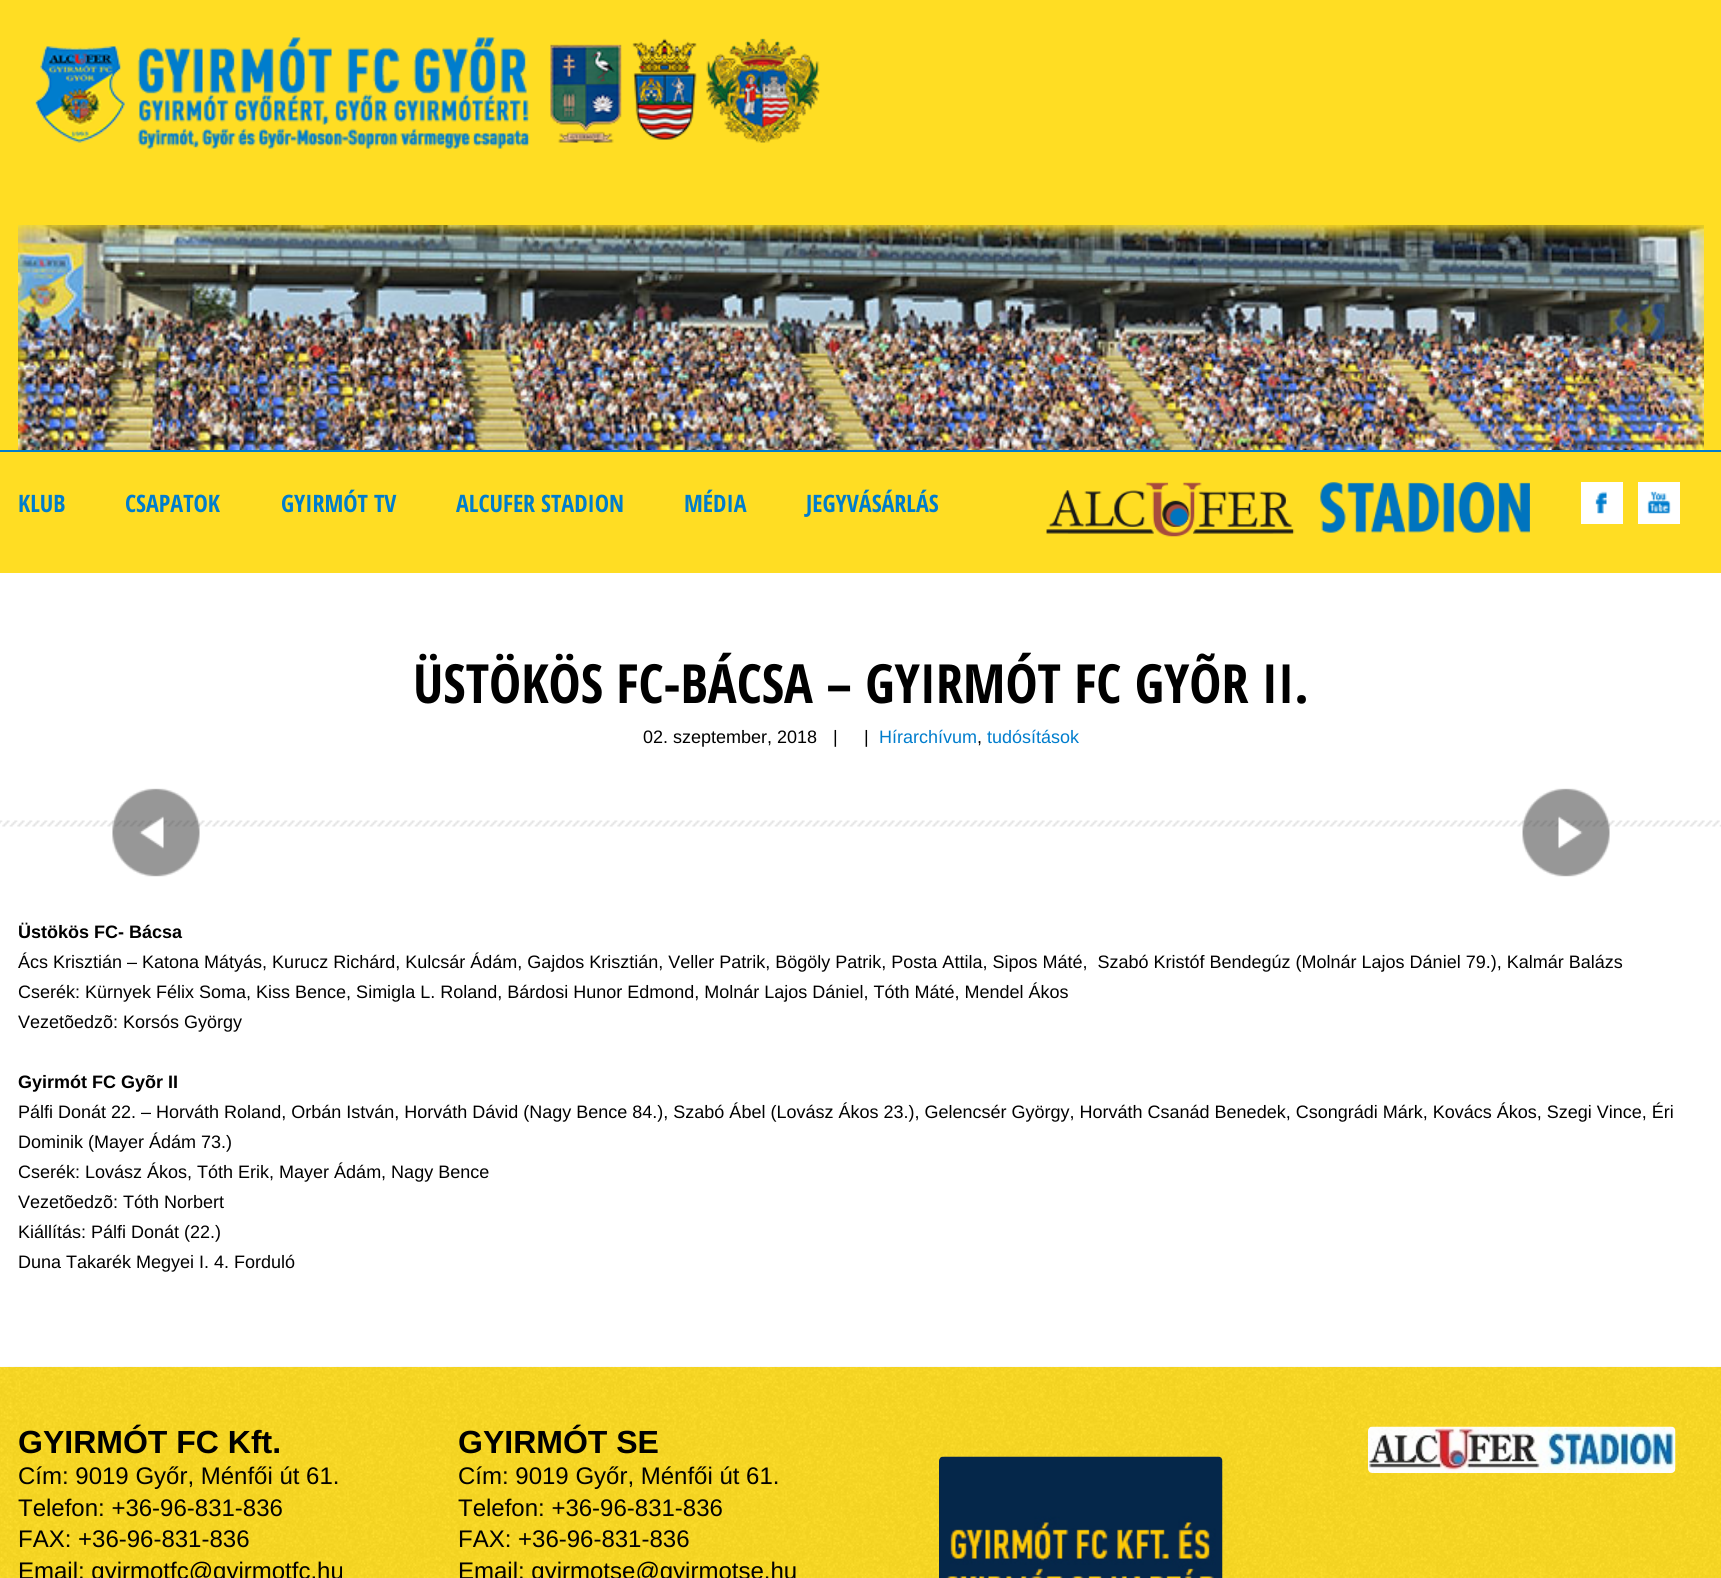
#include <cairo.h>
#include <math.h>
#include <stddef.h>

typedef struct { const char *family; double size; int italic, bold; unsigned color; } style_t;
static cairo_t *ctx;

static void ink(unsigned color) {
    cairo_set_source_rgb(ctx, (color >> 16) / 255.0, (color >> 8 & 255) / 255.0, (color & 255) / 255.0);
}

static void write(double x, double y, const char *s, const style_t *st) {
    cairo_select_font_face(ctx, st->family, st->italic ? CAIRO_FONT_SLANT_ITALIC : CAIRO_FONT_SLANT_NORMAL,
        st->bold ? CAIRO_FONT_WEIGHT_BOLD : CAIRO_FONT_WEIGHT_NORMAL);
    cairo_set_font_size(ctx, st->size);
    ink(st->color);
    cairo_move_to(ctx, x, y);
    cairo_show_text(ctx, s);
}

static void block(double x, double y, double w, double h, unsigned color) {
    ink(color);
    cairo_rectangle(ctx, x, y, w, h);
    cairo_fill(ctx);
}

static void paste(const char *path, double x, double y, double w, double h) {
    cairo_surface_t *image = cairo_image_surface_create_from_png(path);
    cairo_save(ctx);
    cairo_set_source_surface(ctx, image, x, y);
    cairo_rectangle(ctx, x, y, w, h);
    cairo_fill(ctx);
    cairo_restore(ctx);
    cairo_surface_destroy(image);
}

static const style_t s1 = {"Open Sans Condensed", 24, 0, 1, 0x007dcd};
static const style_t s2 = {"Open Sans Condensed", 54, 0, 1, 0x000000};
static const style_t s3 = {"Liberation Sans", 18, 0, 0, 0x000000};
static const style_t s4 = {"Liberation Sans", 18, 0, 0, 0x007dcd};
static const style_t s5 = {"Liberation Sans", 18, 0, 1, 0x000000};
static const style_t s6 = {"Liberation Sans", 32, 0, 1, 0x000000};
static const style_t s7 = {"Liberation Sans", 24, 0, 0, 0x000000};

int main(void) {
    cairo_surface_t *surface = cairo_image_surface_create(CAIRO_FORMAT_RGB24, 1721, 1578);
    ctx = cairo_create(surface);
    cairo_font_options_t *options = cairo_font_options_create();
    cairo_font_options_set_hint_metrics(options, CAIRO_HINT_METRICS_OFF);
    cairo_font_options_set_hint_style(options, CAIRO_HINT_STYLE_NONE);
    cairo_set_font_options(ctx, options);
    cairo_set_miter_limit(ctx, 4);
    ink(0xffffff);
    cairo_paint(ctx);
    block(0, 0, 1721, 573, 0xffdd23);
    paste("pic1.png", 35, 37, 785, 112);
    block(1581, 482, 42, 42, 0xffffff);
    paste("pic2.png", 1595, 491, 12, 23);
    block(1638, 482, 42, 42, 0xffffff);
    paste("pic3.png", 1647, 491, 24, 23);
    paste("pic4.png", 18, 225, 1686, 225);
    block(0, 450, 1721, 2, 0x007dcd);
    write(18, 512, "KLUB", &s1);
    write(125, 512, "CSAPATOK", &s1);
    write(281, 512, "GYIRMÓT TV", &s1);
    write(456, 512, "ALCUFER STADION", &s1);
    write(684, 512, "MÉDIA", &s1);
    write(806, 512, "JEGYVÁSÁRLÁS", &s1);
    paste("pic5.png", 1046, 482, 484, 55);
    write(413, 703, "ÜSTÖKÖS FC-BÁCSA – GYIRMÓT FC GYÕR II.", &s2);
    write(643, 743, "02. szeptember, 2018", &s3);
    write(833, 743, "|", &s3);
    write(864, 743, "|", &s3);
    write(879, 743, "Hírarchívum", &s4);
    write(977, 743, ",", &s3);
    write(987, 743, "tudósítások", &s4);
    paste("pic8.png", 0, 820, 1721, 7);
    paste("pic6.png", 112, 788, 88, 89);
    paste("pic7.png", 1522, 788, 88, 89);
    write(18, 938, "Üstökös FC- Bácsa", &s5);
    write(18, 968, "Ács Krisztián – Katona Mátyás, Kurucz Richárd, Kulcsár Ádám, Gajdos Krisztián, Veller Patrik, Bögöly Patrik, Posta Attila, Sipos Máté,  Szabó Kristóf Bendegúz (Molnár Lajos Dániel 79.), Kalmár Balázs", &s3);
    write(18, 998, "Cserék: Kürnyek Félix Soma, Kiss Bence, Simigla L. Roland, Bárdosi Hunor Edmond, Molnár Lajos Dániel, Tóth Máté, Mendel Ákos", &s3);
    write(18, 1028, "Vezetõedzõ: Korsós György", &s3);
    write(18, 1088, "Gyirmót FC Gyõr II", &s5);
    write(18, 1118, "Pálfi Donát 22. – Horváth Roland, Orbán István, Horváth Dávid (Nagy Bence 84.), Szabó Ábel (Lovász Ákos 23.), Gelencsér György, Horváth Csanád Benedek, Csongrádi Márk, Kovács Ákos, Szegi Vince, Éri", &s3);
    write(18, 1148, "Dominik (Mayer Ádám 73.)", &s3);
    write(18, 1178, "Cserék: Lovász Ákos, Tóth Erik, Mayer Ádám, Nagy Bence", &s3);
    write(18, 1208, "Vezetõedzõ: Tóth Norbert", &s3);
    write(18, 1238, "Kiállítás: Pálfi Donát (22.)", &s3);
    write(18, 1268, "Duna Takarék Megyei I. 4. Forduló", &s3);
    block(0, 1367, 1721, 211, 0xffdd23);
    paste("pic9.png", 0, 1366, 1721, 212);
    write(18, 1453, "GYIRMÓT FC Kft.", &s6);
    write(18, 1484, "Cím: 9019 Győr, Ménfői út 61.", &s7);
    write(18, 1516, "Telefon: +36-96-831-836", &s7);
    write(18, 1547, "FAX: +36-96-831-836", &s7);
    write(18, 1579, "Email: gyirmotfc@gyirmotfc.hu", &s7);
    write(458, 1453, "GYIRMÓT SE", &s6);
    write(458, 1484, "Cím: 9019 Győr, Ménfői út 61.", &s7);
    write(458, 1516, "Telefon: +36-96-831-836", &s7);
    write(458, 1547, "FAX: +36-96-831-836", &s7);
    write(458, 1579, "Email: gyirmotse@gyirmotse.hu", &s7);
    paste("pic10.png", 1368, 1426, 308, 47);
    paste("pic11.png", 939, 1456, 284, 122);
    cairo_surface_write_to_png(surface, "screenshot.png");
    cairo_font_options_destroy(options);
    cairo_destroy(ctx);
    cairo_surface_destroy(surface);
    return 0;
}
